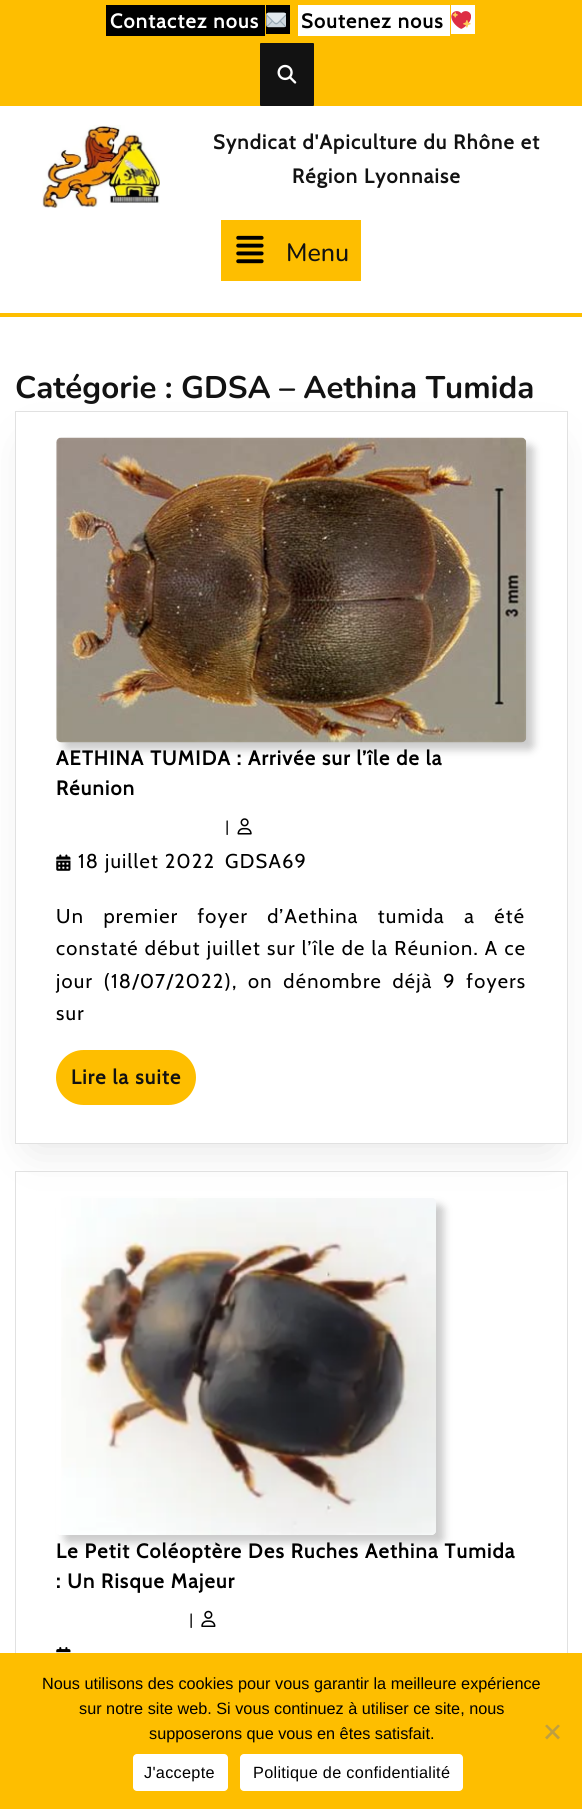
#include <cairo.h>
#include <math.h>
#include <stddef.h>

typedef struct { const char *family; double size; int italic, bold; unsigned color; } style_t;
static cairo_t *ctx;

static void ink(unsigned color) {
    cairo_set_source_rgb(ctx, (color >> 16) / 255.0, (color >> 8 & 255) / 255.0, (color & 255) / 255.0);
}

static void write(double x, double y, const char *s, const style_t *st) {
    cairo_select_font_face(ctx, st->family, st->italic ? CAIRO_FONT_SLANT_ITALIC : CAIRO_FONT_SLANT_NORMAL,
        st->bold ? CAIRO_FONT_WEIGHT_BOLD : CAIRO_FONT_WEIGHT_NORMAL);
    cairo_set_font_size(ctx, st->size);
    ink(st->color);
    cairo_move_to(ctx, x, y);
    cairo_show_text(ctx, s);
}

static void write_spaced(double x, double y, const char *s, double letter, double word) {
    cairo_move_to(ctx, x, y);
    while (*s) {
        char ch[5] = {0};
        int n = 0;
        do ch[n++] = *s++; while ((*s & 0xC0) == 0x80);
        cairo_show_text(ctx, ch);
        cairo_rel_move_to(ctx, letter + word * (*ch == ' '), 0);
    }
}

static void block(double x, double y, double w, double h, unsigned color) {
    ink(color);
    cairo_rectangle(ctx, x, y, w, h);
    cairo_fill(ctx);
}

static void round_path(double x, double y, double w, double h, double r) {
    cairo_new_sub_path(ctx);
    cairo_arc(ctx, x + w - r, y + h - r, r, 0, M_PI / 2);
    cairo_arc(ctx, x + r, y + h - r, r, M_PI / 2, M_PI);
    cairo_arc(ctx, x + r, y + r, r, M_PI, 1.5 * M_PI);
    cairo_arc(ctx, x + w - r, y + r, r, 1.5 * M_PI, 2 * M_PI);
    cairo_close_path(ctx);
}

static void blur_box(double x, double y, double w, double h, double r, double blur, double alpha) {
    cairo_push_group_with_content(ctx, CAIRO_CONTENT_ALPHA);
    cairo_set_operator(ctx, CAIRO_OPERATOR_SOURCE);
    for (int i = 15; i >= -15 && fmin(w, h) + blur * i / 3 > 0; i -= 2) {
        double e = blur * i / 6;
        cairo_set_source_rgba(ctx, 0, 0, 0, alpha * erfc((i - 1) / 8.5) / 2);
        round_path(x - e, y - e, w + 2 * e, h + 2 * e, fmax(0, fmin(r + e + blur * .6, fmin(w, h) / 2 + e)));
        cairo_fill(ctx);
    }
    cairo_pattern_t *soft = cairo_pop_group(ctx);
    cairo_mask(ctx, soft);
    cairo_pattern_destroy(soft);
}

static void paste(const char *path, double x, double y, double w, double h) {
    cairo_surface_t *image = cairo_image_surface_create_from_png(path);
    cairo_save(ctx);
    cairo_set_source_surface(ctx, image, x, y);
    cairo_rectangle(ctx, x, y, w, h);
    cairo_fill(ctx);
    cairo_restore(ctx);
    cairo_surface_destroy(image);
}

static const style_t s1 = {"Nunito Medium", 25, 0, 0, 0x121212};
static const style_t s2 = {"Nunito", 31.25, 0, 1, 0x121212};
static const style_t s3 = {"Liberation Sans", 16.25, 0, 0, 0x000000};

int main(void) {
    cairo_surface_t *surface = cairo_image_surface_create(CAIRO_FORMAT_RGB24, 582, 1809);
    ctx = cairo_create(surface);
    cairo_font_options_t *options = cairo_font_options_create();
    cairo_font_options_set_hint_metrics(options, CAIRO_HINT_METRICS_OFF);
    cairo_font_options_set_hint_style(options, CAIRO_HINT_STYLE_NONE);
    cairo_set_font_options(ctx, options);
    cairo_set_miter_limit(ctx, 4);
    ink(0xffffff);
    cairo_paint(ctx);
    block(0, 0, 582, 106, 0xfebe00);
    block(106, 5, 159, 31, 0x000000);
    cairo_select_font_face(ctx, "Cabin", CAIRO_FONT_SLANT_NORMAL, CAIRO_FONT_WEIGHT_BOLD);
    cairo_set_font_size(ctx, 20);
    ink(0xffffff);
    write_spaced(110, 28, "Contactez nous", 1.25, 0);
    block(266, 5, 24, 29, 0x000000);
    paste("pic1.png", 266, 12, 20, 16);
    block(298, 5, 152, 31, 0xffffff);
    ink(0x000000);
    write_spaced(301, 28, "Soutenez nous", 1.25, 0);
    block(451, 5, 24, 29, 0xffffff);
    paste("pic2.png", 451, 11, 20, 18);
    ink(0x121212);
    round_path(260, 43, 54, 63, 1);
    cairo_fill(ctx);
    paste("pic3.png", 277, 64, 20, 20);
    block(0, 313, 582, 4, 0xfebe00);
    paste("pic4.png", 42, 125, 118, 83);
    ink(0x121212);
    write_spaced(213, 149, "Syndicat d'Apiculture du Rhône et", 1.25, 0);
    write_spaced(292, 183, "Région Lyonnaise", 1.25, 0);
    block(221, 220, 140, 61, 0xfebe00);
    paste("pic5.png", 236, 235, 28, 29);
    write(286, 261, "Menu", &s1);
    write(15, 398, "Catégorie : GDSA – Aethina Tumida", &s2);
    cairo_save(ctx);
    cairo_set_fill_rule(ctx, CAIRO_FILL_RULE_EVEN_ODD);
    cairo_new_path(ctx);
    cairo_move_to(ctx, 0, 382);
    cairo_line_to(ctx, 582, 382);
    cairo_line_to(ctx, 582, 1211);
    cairo_line_to(ctx, 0, 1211);
    cairo_close_path(ctx);
    cairo_move_to(ctx, 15, 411);
    cairo_line_to(ctx, 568, 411);
    cairo_line_to(ctx, 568, 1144);
    cairo_line_to(ctx, 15, 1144);
    cairo_close_path(ctx);
    cairo_clip(ctx);
    ink(0xe1e1e1);
    blur_box(34, 449, 515, 695, 0, 22, 1);
    cairo_restore(ctx);
    cairo_rectangle(ctx, 15.5, 411.5, 552, 732);
    ink(0xe1e1e1);
    cairo_set_line_width(ctx, 1);
    cairo_stroke(ctx);
    ink(0xcccccc);
    blur_box(64, 445, 470, 305, 5, 4, 1);
    paste("pic6.png", 56, 437, 471, 306);
    cairo_select_font_face(ctx, "Cabin", CAIRO_FONT_SLANT_NORMAL, CAIRO_FONT_WEIGHT_BOLD);
    cairo_set_font_size(ctx, 20);
    ink(0x000000);
    write_spaced(56, 765, "AETHINA TUMIDA : Arrivée sur l’île de la", 1.25, 0);
    write_spaced(56, 795, "Réunion", 1.25, 0);
    paste("pic7.png", 56, 854, 15, 17);
    cairo_select_font_face(ctx, "Cabin", CAIRO_FONT_SLANT_NORMAL, CAIRO_FONT_WEIGHT_NORMAL);
    write_spaced(78, 868, "18 juillet 2022", 1.25, 0);
    cairo_select_font_face(ctx, "Nunito", CAIRO_FONT_SLANT_NORMAL, CAIRO_FONT_WEIGHT_NORMAL);
    cairo_set_font_size(ctx, 16.25);
    write_spaced(225, 832, "|", 1.25, 0);
    paste("pic8.png", 237, 818, 15, 17);
    cairo_select_font_face(ctx, "Cabin", CAIRO_FONT_SLANT_NORMAL, CAIRO_FONT_WEIGHT_NORMAL);
    cairo_set_font_size(ctx, 20);
    write_spaced(225, 868, "GDSA69", 1.25, 0);
    write_spaced(56, 923, "Un premier foyer d’Aethina tumida a été", 1.25, 13.5);
    write_spaced(56, 955, "constaté début juillet sur l’île de la Réunion. A ce", 1.25, 0.25);
    write_spaced(56, 988, "jour (18/07/2022), on dénombre déjà 9 foyers", 1.25, 4.75);
    write_spaced(56, 1020, "sur", 1.25, 0);
    ink(0xfebe00);
    round_path(56, 1050, 140, 55, 27.5);
    cairo_fill(ctx);
    cairo_select_font_face(ctx, "Cabin", CAIRO_FONT_SLANT_NORMAL, CAIRO_FONT_WEIGHT_BOLD);
    ink(0x121212);
    write_spaced(71, 1084, "Lire la suite", 1.25, 0);
    cairo_rectangle(ctx, 15.5, 1171.5, 552, 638);
    ink(0xe1e1e1);
    cairo_stroke(ctx);
    cairo_save(ctx);
    cairo_set_fill_rule(ctx, CAIRO_FILL_RULE_EVEN_ODD);
    cairo_new_path(ctx);
    cairo_move_to(ctx, 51, 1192);
    cairo_line_to(ctx, 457, 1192);
    cairo_line_to(ctx, 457, 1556);
    cairo_line_to(ctx, 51, 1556);
    cairo_close_path(ctx);
    cairo_move_to(ctx, 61, 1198);
    cairo_line_to(ctx, 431, 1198);
    cairo_curve_to(ctx, 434, 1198, 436, 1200, 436, 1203);
    cairo_line_to(ctx, 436, 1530);
    cairo_curve_to(ctx, 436, 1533, 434, 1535, 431, 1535);
    cairo_line_to(ctx, 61, 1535);
    cairo_curve_to(ctx, 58, 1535, 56, 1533, 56, 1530);
    cairo_line_to(ctx, 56, 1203);
    cairo_curve_to(ctx, 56, 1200, 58, 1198, 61, 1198);
    cairo_close_path(ctx);
    cairo_clip(ctx);
    ink(0xcccccc);
    blur_box(64, 1205, 380, 338, 5, 4, 1);
    cairo_restore(ctx);
    paste("pic9.png", 61, 1198, 375, 337);
    ink(0x000000);
    write_spaced(56, 1558, "Le Petit Coléoptère Des Ruches Aethina Tumida", 1.25, 0);
    write_spaced(56, 1588, ": Un Risque Majeur", 1.25, 0);
    cairo_select_font_face(ctx, "Nunito", CAIRO_FONT_SLANT_NORMAL, CAIRO_FONT_WEIGHT_NORMAL);
    cairo_set_font_size(ctx, 16.25);
    write_spaced(189, 1625, "|", 1.25, 0);
    paste("pic10.png", 201, 1610, 15, 17);
    paste("pic11.png", 56, 1647, 15, 6);
    block(0, 1653, 582, 156, 0xfebe00);
    write(42, 1689, "Nous utilisons des cookies pour vous garantir la meilleure expérience", &s3);
    write(79, 1714, "sur notre site web. Si vous continuez à utiliser ce site, nous", &s3);
    write(149, 1739, "supposerons que vous en êtes satisfait.", &s3);
    ink(0xbf9f40);
    cairo_new_path(ctx);
    cairo_move_to(ctx, 558, 1724.5);
    cairo_line_to(ctx, 560, 1726);
    cairo_line_to(ctx, 547, 1739.5);
    cairo_line_to(ctx, 545, 1737.5);
    cairo_close_path(ctx);
    cairo_fill(ctx);
    cairo_new_path(ctx);
    cairo_move_to(ctx, 545, 1726);
    cairo_line_to(ctx, 547, 1724.5);
    cairo_line_to(ctx, 560, 1737.5);
    cairo_line_to(ctx, 558, 1739.5);
    cairo_close_path(ctx);
    cairo_fill(ctx);
    ink(0xffffff);
    round_path(133, 1754, 95, 37, 4);
    cairo_fill(ctx);
    ink(0x000000);
    write_spaced(144, 1778, "J'accepte", 0.3, 0);
    ink(0xffffff);
    round_path(240, 1754, 223, 37, 4);
    cairo_fill(ctx);
    ink(0x000000);
    write_spaced(253, 1778, "Politique de confidentialité", 0.3, 0);
    cairo_surface_write_to_png(surface, "screenshot.png");
    cairo_font_options_destroy(options);
    cairo_destroy(ctx);
    cairo_surface_destroy(surface);
    return 0;
}
